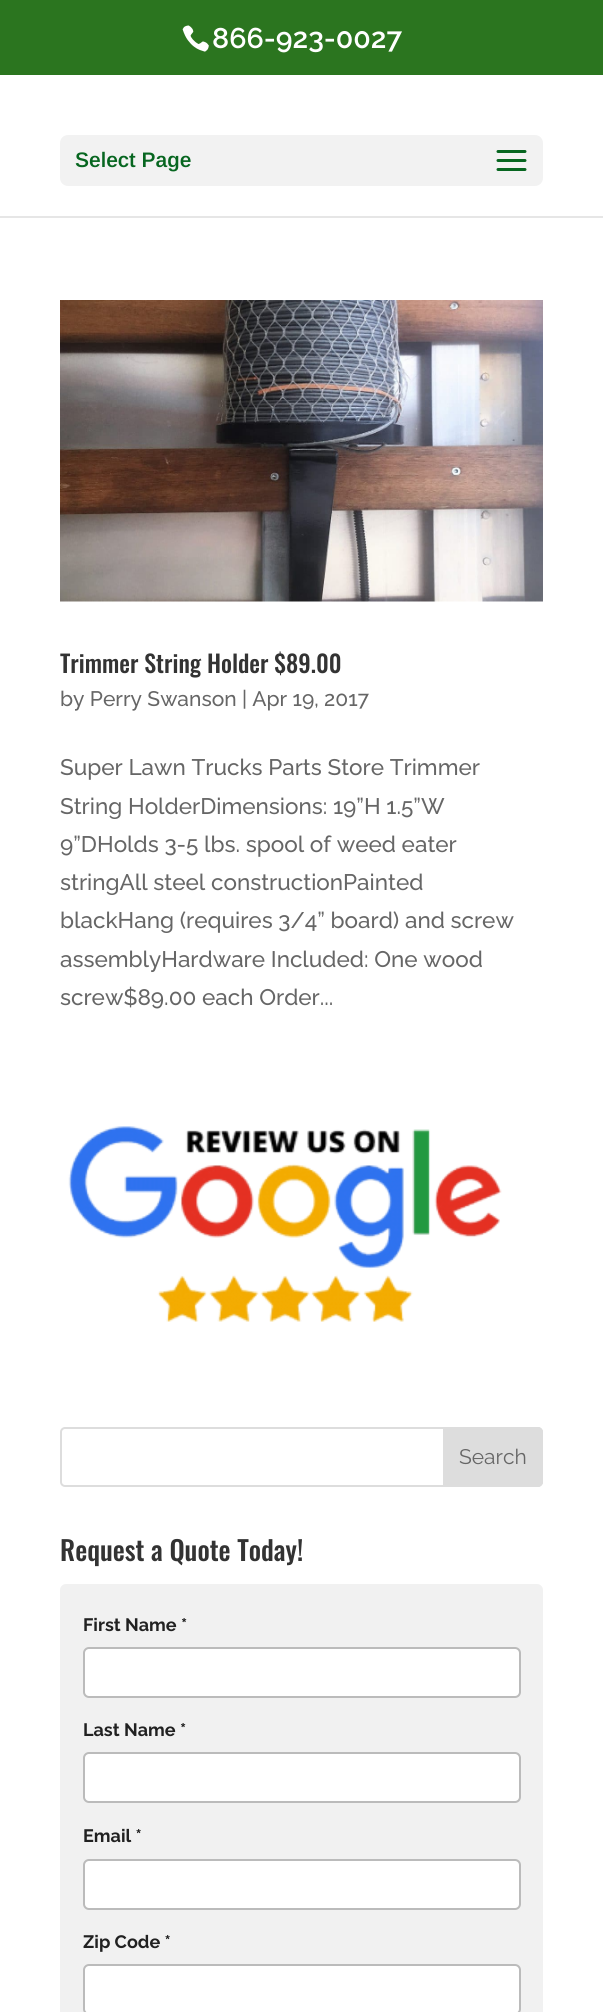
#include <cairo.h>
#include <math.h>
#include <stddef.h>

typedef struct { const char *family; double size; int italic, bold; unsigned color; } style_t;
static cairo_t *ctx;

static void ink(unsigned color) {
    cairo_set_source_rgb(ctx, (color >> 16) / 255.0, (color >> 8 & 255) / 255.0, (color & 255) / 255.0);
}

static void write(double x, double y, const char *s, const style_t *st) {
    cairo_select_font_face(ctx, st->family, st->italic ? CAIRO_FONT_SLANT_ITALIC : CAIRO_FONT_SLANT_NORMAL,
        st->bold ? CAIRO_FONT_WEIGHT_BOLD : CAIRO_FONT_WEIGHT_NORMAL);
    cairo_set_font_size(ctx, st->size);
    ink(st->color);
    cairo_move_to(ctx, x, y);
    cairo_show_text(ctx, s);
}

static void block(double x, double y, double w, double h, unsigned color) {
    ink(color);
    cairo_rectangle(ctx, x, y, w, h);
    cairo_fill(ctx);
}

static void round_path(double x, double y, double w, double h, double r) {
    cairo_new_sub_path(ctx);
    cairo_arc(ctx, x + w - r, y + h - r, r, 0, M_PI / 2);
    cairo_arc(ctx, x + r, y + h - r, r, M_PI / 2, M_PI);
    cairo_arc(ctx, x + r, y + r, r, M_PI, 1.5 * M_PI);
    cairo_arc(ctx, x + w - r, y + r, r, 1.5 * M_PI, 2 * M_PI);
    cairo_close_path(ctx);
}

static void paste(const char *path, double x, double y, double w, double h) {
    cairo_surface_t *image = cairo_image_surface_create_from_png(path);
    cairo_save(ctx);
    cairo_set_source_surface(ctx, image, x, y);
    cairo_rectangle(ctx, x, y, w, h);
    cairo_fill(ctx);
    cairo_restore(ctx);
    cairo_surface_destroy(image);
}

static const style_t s1 = {"Raleway SemiBold", 28.5, 0, 0, 0xffffff};
static const style_t s2 = {"Arimo SemiBold", 21, 0, 0, 0x076620};
static const style_t s3 = {"Oswald Medium", 24, 0, 0, 0x333333};
static const style_t s4 = {"Raleway Medium", 21, 0, 0, 0x666666};
static const style_t s5 = {"Raleway Medium", 22.5, 0, 0, 0x666666};
static const style_t s6 = {"Raleway", 21, 0, 0, 0x666666};
static const style_t s7 = {"Oswald Medium", 27, 0, 0, 0x333333};
static const style_t s8 = {"Raleway", 18, 0, 1, 0x212121};

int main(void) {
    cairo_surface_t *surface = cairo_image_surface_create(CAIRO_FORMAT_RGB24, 603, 2012);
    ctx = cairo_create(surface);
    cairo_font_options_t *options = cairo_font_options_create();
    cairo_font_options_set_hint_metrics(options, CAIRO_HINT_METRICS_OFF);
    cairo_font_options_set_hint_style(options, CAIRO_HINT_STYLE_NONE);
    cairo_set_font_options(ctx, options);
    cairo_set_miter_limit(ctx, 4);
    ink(0xffffff);
    cairo_paint(ctx);
    block(0, 0, 603, 75, 0x2b751f);
    paste("pic1.png", 182, 25, 27, 27);
    write(212, 48, "866-923-0027", &s1);
    block(0, 216, 603, 2, 0xe6e6e6);
    ink(0xf2f2f2);
    round_path(60, 135, 483, 51, 8);
    cairo_fill(ctx);
    write(75, 167, "Select Page", &s2);
    paste("pic2.png", 496, 150, 31, 21);
    paste("pic3.png", 60, 300, 483, 302);
    write(60, 673, "Trimmer String Holder $89.00", &s3);
    write(60, 706, "by Perry Swanson | Apr 19, 2017", &s4);
    write(60, 775, "Super Lawn Trucks Parts Store Trimmer", &s5);
    write(60, 814, "String HolderDimensions: 19”H 1.5”W", &s5);
    write(60, 852, "9”DHolds 3-5 lbs. spool of weed eater", &s5);
    write(60, 890, "stringAll steel constructionPainted", &s5);
    write(60, 928, "blackHang (requires 3/4” board) and screw", &s5);
    write(60, 967, "assemblyHardware Included: One wood", &s5);
    write(60, 1005, "screw$89.00 each Order...", &s5);
    paste("pic4.png", 68, 1126, 434, 196);
    round_path(61, 1428, 481, 58, 4);
    ink(0xdddddd);
    cairo_stroke(ctx);
    cairo_new_path(ctx);
    cairo_move_to(ctx, 444, 1428);
    cairo_line_to(ctx, 538, 1428);
    cairo_curve_to(ctx, 540, 1428, 542, 1430, 542, 1432);
    cairo_line_to(ctx, 542, 1482);
    cairo_curve_to(ctx, 542, 1484, 540, 1486, 538, 1486);
    cairo_line_to(ctx, 444, 1486);
    cairo_close_path(ctx);
    cairo_fill_preserve(ctx);
    cairo_stroke(ctx);
    write(459, 1464, "Search", &s6);
    write(60, 1561, "Request a Quote Today!", &s7);
    ink(0xf1f1f1);
    round_path(60, 1584, 483, 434, 6);
    cairo_fill(ctx);
    write(83, 1631, "First Name *", &s8);
    ink(0xffffff);
    round_path(84, 1648, 436, 49, 5);
    cairo_fill_preserve(ctx);
    ink(0xbbbbbb);
    cairo_stroke(ctx);
    write(83, 1736, "Last Name *", &s8);
    ink(0xffffff);
    round_path(84, 1753, 436, 49, 5);
    cairo_fill_preserve(ctx);
    ink(0xbbbbbb);
    cairo_stroke(ctx);
    write(83, 1842, "Email *", &s8);
    ink(0xffffff);
    round_path(84, 1860, 436, 49, 5);
    cairo_fill_preserve(ctx);
    ink(0xbbbbbb);
    cairo_stroke(ctx);
    write(83, 1948, "Zip Code *", &s8);
    ink(0xffffff);
    round_path(84, 1965, 436, 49, 5);
    cairo_fill_preserve(ctx);
    ink(0xbbbbbb);
    cairo_stroke(ctx);
    cairo_surface_write_to_png(surface, "screenshot.png");
    cairo_font_options_destroy(options);
    cairo_destroy(ctx);
    cairo_surface_destroy(surface);
    return 0;
}
